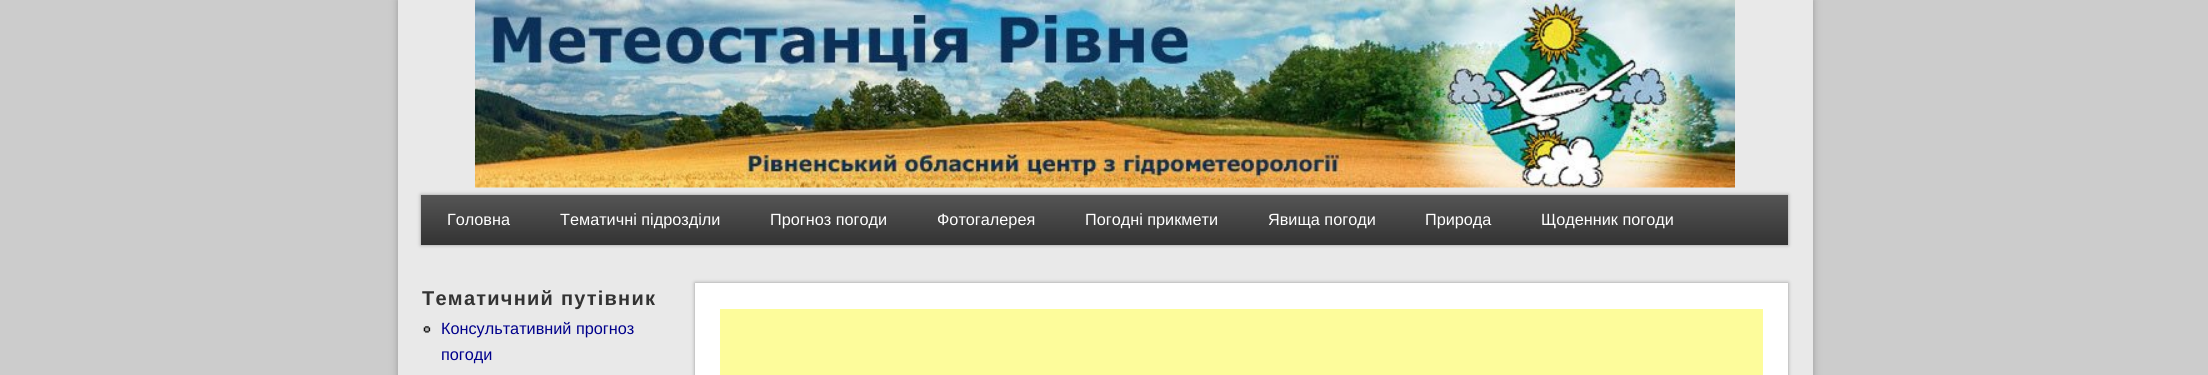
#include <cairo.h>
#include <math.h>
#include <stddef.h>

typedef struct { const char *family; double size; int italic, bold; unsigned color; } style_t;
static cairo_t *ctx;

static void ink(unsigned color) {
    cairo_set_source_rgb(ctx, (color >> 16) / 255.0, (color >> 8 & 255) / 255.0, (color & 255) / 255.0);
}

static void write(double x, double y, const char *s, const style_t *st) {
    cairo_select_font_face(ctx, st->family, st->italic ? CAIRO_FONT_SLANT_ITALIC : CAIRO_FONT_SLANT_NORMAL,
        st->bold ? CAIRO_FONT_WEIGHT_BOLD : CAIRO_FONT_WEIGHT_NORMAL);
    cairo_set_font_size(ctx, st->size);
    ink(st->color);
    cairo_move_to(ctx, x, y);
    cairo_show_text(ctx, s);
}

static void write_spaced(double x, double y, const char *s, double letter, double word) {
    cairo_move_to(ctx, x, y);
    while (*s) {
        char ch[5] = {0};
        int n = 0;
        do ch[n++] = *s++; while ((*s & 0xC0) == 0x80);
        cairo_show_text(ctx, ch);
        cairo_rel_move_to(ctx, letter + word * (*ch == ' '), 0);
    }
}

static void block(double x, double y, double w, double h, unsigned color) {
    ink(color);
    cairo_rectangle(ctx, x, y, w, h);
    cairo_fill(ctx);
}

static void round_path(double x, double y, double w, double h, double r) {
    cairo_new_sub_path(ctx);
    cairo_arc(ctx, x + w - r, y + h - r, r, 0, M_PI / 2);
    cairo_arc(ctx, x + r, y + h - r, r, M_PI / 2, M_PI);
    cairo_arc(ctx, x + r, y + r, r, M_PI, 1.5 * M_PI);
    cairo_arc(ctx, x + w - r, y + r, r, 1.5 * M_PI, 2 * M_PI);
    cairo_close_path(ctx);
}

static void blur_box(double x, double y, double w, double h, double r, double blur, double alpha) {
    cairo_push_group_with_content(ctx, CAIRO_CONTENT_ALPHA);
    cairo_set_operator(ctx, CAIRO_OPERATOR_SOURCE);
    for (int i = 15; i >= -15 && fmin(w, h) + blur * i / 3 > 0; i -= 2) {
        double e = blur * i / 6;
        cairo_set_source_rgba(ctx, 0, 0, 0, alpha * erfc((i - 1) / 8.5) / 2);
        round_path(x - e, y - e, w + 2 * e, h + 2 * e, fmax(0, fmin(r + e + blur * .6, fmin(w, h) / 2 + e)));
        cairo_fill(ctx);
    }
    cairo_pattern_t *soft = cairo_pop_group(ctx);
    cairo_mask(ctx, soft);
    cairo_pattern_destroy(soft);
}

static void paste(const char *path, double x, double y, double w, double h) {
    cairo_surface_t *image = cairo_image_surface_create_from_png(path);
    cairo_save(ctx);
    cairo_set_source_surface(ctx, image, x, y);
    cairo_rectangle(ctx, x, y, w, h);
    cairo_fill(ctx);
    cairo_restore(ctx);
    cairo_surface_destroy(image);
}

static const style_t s1 = {"Liberation Sans", 16.25, 0, 0, 0xffffff};
static const style_t s2 = {"Liberation Sans", 16.25, 0, 0, 0x00008b};

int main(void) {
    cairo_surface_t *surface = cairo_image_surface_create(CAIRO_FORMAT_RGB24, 2208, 375);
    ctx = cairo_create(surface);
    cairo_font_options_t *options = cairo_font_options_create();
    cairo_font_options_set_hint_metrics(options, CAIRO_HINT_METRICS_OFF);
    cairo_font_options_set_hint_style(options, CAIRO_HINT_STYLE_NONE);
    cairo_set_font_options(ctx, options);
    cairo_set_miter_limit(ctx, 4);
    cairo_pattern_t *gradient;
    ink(0xcccccc);
    cairo_paint(ctx);
    ink(0x999999);
    blur_box(398, 0, 1415, 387, 0, 4, 1);
    block(398, 0, 1415, 375, 0xe9e9e9);
    paste("pic1.png", 475, 0, 1260, 188);
    ink(0x999999);
    blur_box(421, 195, 1367, 50, 0, 2, 1);
    gradient = cairo_pattern_create_linear(1104, 195, 1104, 295);
    cairo_pattern_add_color_stop_rgba(gradient, 0, 0.333, 0.333, 0.333, 1);
    cairo_pattern_add_color_stop_rgba(gradient, 0.5, 0.2, 0.2, 0.2, 1);
    cairo_pattern_add_color_stop_rgba(gradient, 0.5, 0.333, 0.333, 0.333, 1);
    cairo_pattern_add_color_stop_rgba(gradient, 1, 0.2, 0.2, 0.2, 1);
    cairo_set_source(ctx, gradient);
    cairo_pattern_destroy(gradient);
    cairo_rectangle(ctx, 421, 195, 1367, 50);
    cairo_fill(ctx);
    write(447, 225, "Головна", &s1);
    write(560, 225, "Тематичні підрозділи", &s1);
    write(770, 225, "Прогноз погоди", &s1);
    write(937, 225, "Фотогалерея", &s1);
    write(1085, 225, "Погодні прикмети", &s1);
    write(1268, 225, "Явища погоди", &s1);
    write(1425, 225, "Природа", &s1);
    write(1541, 225, "Щоденник погоди", &s1);
    cairo_select_font_face(ctx, "Liberation Sans", CAIRO_FONT_SLANT_NORMAL, CAIRO_FONT_WEIGHT_BOLD);
    cairo_set_font_size(ctx, 20);
    ink(0x333333);
    write_spaced(422, 305, "Тематичний путівник", 1.25, 0);
    paste("pic2.png", 423, 326, 8, 7);
    write(441, 334, "Консультативний прогноз", &s2);
    write(441, 360, "погоди", &s2);
    ink(0x999999);
    blur_box(695, 283, 1093, 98, 0, 2, 1);
    block(695, 283, 1093, 92, 0xffffff);
    block(720, 309, 1043, 66, 0xfdfc9b);
    cairo_surface_write_to_png(surface, "screenshot.png");
    cairo_font_options_destroy(options);
    cairo_destroy(ctx);
    cairo_surface_destroy(surface);
    return 0;
}
